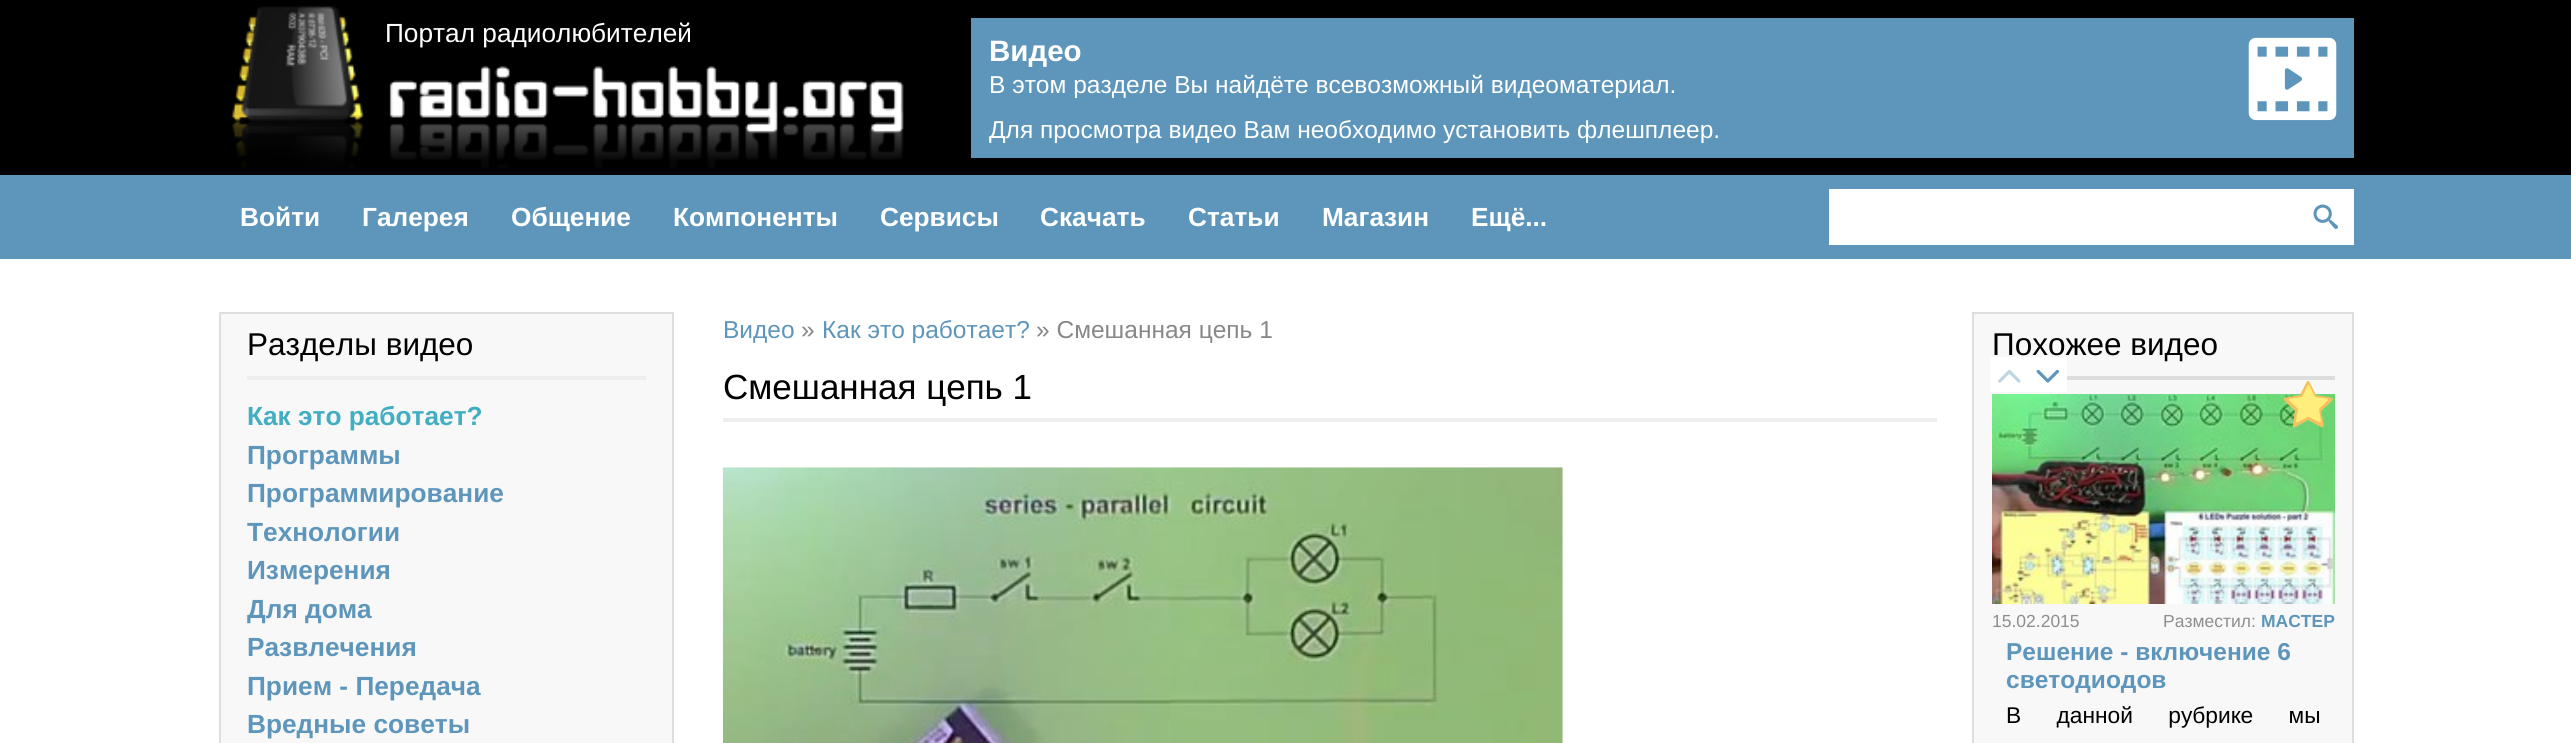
#include <cairo.h>
#include <math.h>
#include <stddef.h>

typedef struct { const char *family; double size; int italic, bold; unsigned color; } style_t;
static cairo_t *ctx;

static void ink(unsigned color) {
    cairo_set_source_rgb(ctx, (color >> 16) / 255.0, (color >> 8 & 255) / 255.0, (color & 255) / 255.0);
}

static void write(double x, double y, const char *s, const style_t *st) {
    cairo_select_font_face(ctx, st->family, st->italic ? CAIRO_FONT_SLANT_ITALIC : CAIRO_FONT_SLANT_NORMAL,
        st->bold ? CAIRO_FONT_WEIGHT_BOLD : CAIRO_FONT_WEIGHT_NORMAL);
    cairo_set_font_size(ctx, st->size);
    ink(st->color);
    cairo_move_to(ctx, x, y);
    cairo_show_text(ctx, s);
}

static void write_spaced(double x, double y, const char *s, double letter, double word) {
    cairo_move_to(ctx, x, y);
    while (*s) {
        char ch[5] = {0};
        int n = 0;
        do ch[n++] = *s++; while ((*s & 0xC0) == 0x80);
        cairo_show_text(ctx, ch);
        cairo_rel_move_to(ctx, letter + word * (*ch == ' '), 0);
    }
}

static void block(double x, double y, double w, double h, unsigned color) {
    ink(color);
    cairo_rectangle(ctx, x, y, w, h);
    cairo_fill(ctx);
}

static void paste(const char *path, double x, double y, double w, double h) {
    cairo_surface_t *image = cairo_image_surface_create_from_png(path);
    cairo_save(ctx);
    cairo_set_source_surface(ctx, image, x, y);
    cairo_rectangle(ctx, x, y, w, h);
    cairo_fill(ctx);
    cairo_restore(ctx);
    cairo_surface_destroy(image);
}

static const style_t s1 = {"Liberation Sans", 26.25, 0, 0, 0xffffff};
static const style_t s2 = {"Liberation Sans", 29.5, 0, 1, 0xffffff};
static const style_t s3 = {"Liberation Sans", 24.5, 0, 0, 0xffffff};
static const style_t s4 = {"Liberation Sans", 26.25, 0, 1, 0xffffff};
static const style_t s5 = {"Liberation Sans", 31.5, 0, 0, 0x000000};
static const style_t s6 = {"Liberation Sans", 26.25, 0, 1, 0x42aec2};
static const style_t s7 = {"Liberation Sans", 26.25, 0, 1, 0x5d96ba};
static const style_t s8 = {"Liberation Sans", 24.5, 0, 0, 0x5d96ba};
static const style_t s9 = {"Liberation Sans", 24.5, 0, 0, 0x888888};
static const style_t s10 = {"Liberation Sans", 35, 0, 0, 0x000000};
static const style_t s11 = {"Liberation Sans", 17.5, 0, 0, 0x8e8e8e};
static const style_t s12 = {"Liberation Sans", 17.5, 0, 1, 0x5d96ba};
static const style_t s13 = {"Liberation Sans", 24.5, 0, 1, 0x5d96ba};

int main(void) {
    cairo_surface_t *surface = cairo_image_surface_create(CAIRO_FORMAT_RGB24, 2571, 743);
    ctx = cairo_create(surface);
    cairo_font_options_t *options = cairo_font_options_create();
    cairo_font_options_set_hint_metrics(options, CAIRO_HINT_METRICS_OFF);
    cairo_font_options_set_hint_style(options, CAIRO_HINT_STYLE_NONE);
    cairo_set_font_options(ctx, options);
    cairo_set_miter_limit(ctx, 4);
    ink(0xffffff);
    cairo_paint(ctx);
    block(0, 0, 2571, 175, 0x000000);
    paste("pic1.png", 231, 5, 673, 163);
    write(385, 42, "Портал радиолюбителей", &s1);
    block(971, 18, 1383, 140, 0x5d96ba);
    write(989, 61, "Видео", &s2);
    write(989, 93, "В этом разделе Вы найдёте всевозможный видеоматериал.", &s3);
    write(989, 138, "Для просмотра видео Вам необходимо установить флешплеер.", &s3);
    paste("pic2.png", 2248, 37, 89, 84);
    block(0, 175, 2571, 84, 0x5d96ba);
    write(240, 226, "Войти", &s4);
    write(362, 226, "Галерея", &s4);
    write(511, 226, "Общение", &s4);
    write(673, 226, "Компоненты", &s4);
    write(880, 226, "Сервисы", &s4);
    write(1040, 226, "Скачать", &s4);
    write(1188, 226, "Статьи", &s4);
    write(1322, 226, "Магазин", &s4);
    write(1471, 226, "Ещё...", &s4);
    block(1829, 189, 525, 56, 0xffffff);
    paste("pic3.png", 2313, 204, 25, 25);
    ink(0xf8f8f8);
    cairo_rectangle(ctx, 220, 313, 453, 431);
    cairo_fill_preserve(ctx);
    ink(0xdedede);
    cairo_stroke(ctx);
    block(247, 376, 399, 4, 0xeeeeee);
    write(247, 355, "Разделы видео", &s5);
    write(247, 425, "Как это работает?", &s6);
    write(247, 464, "Программы", &s7);
    write(247, 502, "Программирование", &s7);
    write(247, 541, "Технологии", &s7);
    write(247, 579, "Измерения", &s7);
    write(247, 618, "Для дома", &s7);
    write(247, 656, "Развлечения", &s7);
    write(247, 695, "Прием - Передача", &s7);
    write(247, 733, "Вредные советы", &s7);
    write(723, 338, "Видео", &s8);
    write(801, 338, "»", &s9);
    write(822, 338, "Как это работает?", &s8);
    write(1036, 338, "» Смешанная цепь 1", &s9);
    block(723, 418, 1214, 4, 0xeeeeee);
    write(723, 399, "Смешанная цепь 1", &s10);
    paste("pic4.png", 722, 467, 841, 276);
    ink(0xf8f8f8);
    cairo_rectangle(ctx, 1973, 313, 380, 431);
    cairo_fill_preserve(ctx);
    ink(0xdedede);
    cairo_stroke(ctx);
    write(1992, 355, "Похожее видео", &s5);
    block(1990, 357, 77, 35, 0xffffff);
    paste("pic5.png", 1998, 369, 23, 14);
    paste("pic6.png", 2036, 369, 23, 14);
    block(2067, 376, 268, 4, 0xdddddd);
    paste("pic8.png", 1992, 394, 343, 210);
    ink(0xf4c15e);
    cairo_new_path(ctx);
    cairo_move_to(ctx, 2333, 399);
    cairo_curve_to(ctx, 2333, 401, 2323, 409, 2321, 411);
    cairo_curve_to(ctx, 2325, 432, 2327, 430, 2308, 420);
    cairo_curve_to(ctx, 2289, 430, 2292, 432, 2295, 411);
    cairo_curve_to(ctx, 2280, 396, 2278, 399, 2300, 395);
    cairo_curve_to(ctx, 2310, 376, 2306, 376, 2316, 395);
    cairo_curve_to(ctx, 2318, 396, 2333, 397, 2333, 399);
    cairo_close_path(ctx);
    cairo_fill(ctx);
    paste("pic7.png", 2289, 385, 39, 38);
    write(1992, 627, "15.02.2015", &s11);
    write(2163, 627, "Разместил:", &s11);
    write(2261, 627, "MACTEP", &s12);
    write(2006, 660, "Решение - включение 6", &s13);
    write(2006, 688, "светодиодов", &s13);
    cairo_select_font_face(ctx, "Liberation Sans", CAIRO_FONT_SLANT_NORMAL, CAIRO_FONT_WEIGHT_NORMAL);
    cairo_set_font_size(ctx, 22.75);
    ink(0x000000);
    write_spaced(2006, 723, "В данной рубрике мы", 0, 29);
    cairo_surface_write_to_png(surface, "screenshot.png");
    cairo_font_options_destroy(options);
    cairo_destroy(ctx);
    cairo_surface_destroy(surface);
    return 0;
}
